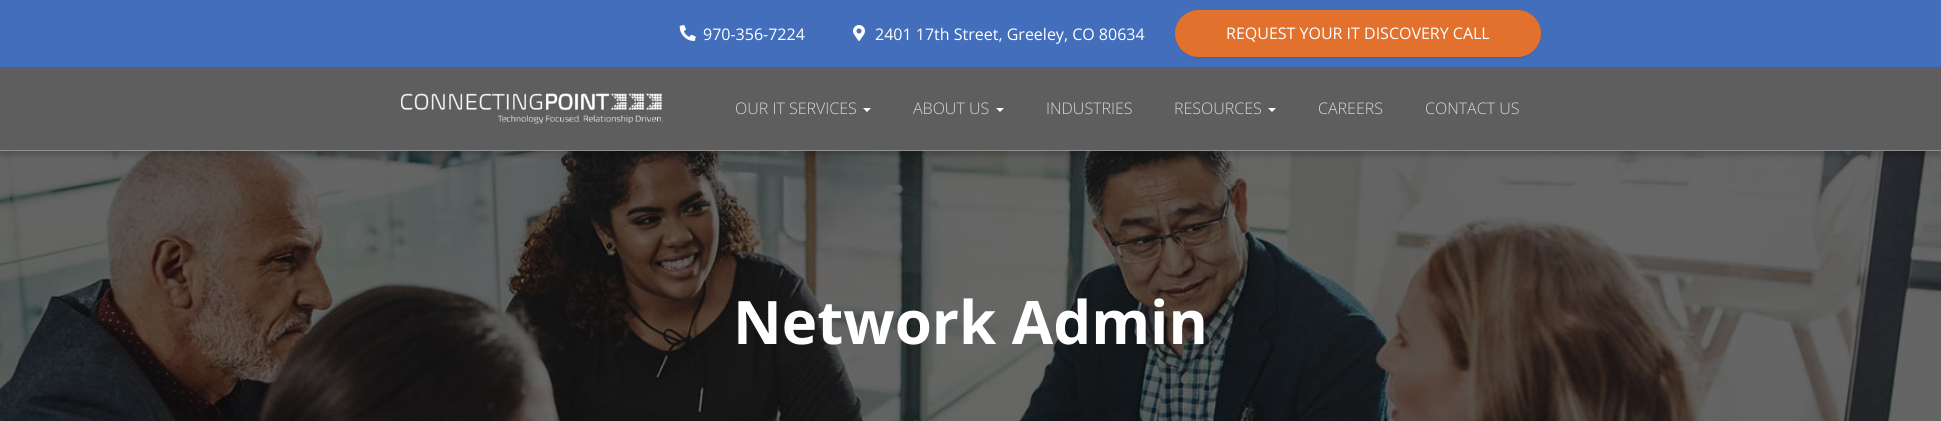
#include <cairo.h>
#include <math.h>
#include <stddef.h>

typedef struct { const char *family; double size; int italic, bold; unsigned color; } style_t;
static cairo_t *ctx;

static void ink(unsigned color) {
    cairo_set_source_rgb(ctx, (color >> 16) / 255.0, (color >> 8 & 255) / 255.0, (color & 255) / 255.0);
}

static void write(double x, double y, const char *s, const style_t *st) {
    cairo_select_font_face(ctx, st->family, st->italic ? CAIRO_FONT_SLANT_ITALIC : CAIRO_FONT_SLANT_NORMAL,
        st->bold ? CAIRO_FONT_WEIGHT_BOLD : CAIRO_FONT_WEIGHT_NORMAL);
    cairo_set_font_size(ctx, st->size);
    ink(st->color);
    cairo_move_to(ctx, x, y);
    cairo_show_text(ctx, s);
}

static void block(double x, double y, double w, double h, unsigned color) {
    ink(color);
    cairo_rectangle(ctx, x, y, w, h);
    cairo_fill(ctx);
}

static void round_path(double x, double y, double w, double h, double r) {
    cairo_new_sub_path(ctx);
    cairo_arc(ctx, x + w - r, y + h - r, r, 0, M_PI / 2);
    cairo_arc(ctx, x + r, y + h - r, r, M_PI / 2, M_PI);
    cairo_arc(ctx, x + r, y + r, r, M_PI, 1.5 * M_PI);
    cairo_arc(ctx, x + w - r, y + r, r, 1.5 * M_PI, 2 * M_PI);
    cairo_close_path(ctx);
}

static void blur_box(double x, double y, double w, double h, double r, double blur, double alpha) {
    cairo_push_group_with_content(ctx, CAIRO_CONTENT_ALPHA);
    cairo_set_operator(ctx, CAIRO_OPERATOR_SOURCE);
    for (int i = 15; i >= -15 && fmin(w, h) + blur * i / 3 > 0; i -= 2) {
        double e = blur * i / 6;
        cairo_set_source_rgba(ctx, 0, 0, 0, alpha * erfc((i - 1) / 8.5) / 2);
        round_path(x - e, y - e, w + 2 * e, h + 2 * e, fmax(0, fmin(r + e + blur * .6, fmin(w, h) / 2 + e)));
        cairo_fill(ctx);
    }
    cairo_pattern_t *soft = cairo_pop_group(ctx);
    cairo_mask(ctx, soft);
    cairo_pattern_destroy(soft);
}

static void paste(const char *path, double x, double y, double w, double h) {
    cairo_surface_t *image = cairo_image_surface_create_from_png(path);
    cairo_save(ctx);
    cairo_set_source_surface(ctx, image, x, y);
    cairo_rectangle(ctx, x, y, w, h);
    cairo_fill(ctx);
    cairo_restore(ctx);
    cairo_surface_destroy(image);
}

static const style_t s1 = {"Open Sans", 16, 0, 0, 0xffffff};
static const style_t s2 = {"Open Sans Light", 16, 0, 0, 0xd7d7d7};
static const style_t s3 = {"Open Sans", 60, 0, 1, 0xffffff};

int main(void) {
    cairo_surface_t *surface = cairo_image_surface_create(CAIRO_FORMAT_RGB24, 1941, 421);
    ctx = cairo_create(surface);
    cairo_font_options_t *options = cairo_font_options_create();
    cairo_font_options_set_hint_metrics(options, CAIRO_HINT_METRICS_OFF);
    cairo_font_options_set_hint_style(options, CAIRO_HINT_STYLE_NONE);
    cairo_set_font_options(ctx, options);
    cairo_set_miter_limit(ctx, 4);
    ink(0x426ebc);
    cairo_paint(ctx);
    paste("pic1.png", 679, 25, 17, 16);
    write(703, 40, "970-356-7224", &s1);
    paste("pic2.png", 853, 25, 12, 16);
    write(875, 40, "2401 17th Street, Greeley, CO 80634", &s1);
    ink(0x000000);
    blur_box(1175, 11, 366, 47, 23.5, 1, 0.1);
    ink(0xe1712d);
    round_path(1175.5, 10.5, 365, 46, 23);
    cairo_fill_preserve(ctx);
    cairo_set_line_width(ctx, 1);
    cairo_stroke(ctx);
    write(1226, 39, "REQUEST YOUR IT DISCOVERY CALL", &s1);
    paste("pic4.png", 0, 151, 1941, 270);
    ink(0x000000);
    blur_box(0, 71, 1941, 84, 0, 3, 0.2);
    block(0, 67, 1941, 83, 0x5e5e5e);
    block(0, 150, 1941, 1, 0x919191);
    paste("pic3.png", 401, 93, 262, 31);
    write(735, 114, "OUR IT SERVICES", &s2);
    ink(0xffffff);
    cairo_new_path(ctx);
    cairo_move_to(ctx, 863, 108);
    cairo_line_to(ctx, 871, 108);
    cairo_line_to(ctx, 867, 112);
    cairo_close_path(ctx);
    cairo_fill(ctx);
    write(913, 114, "ABOUT US", &s2);
    ink(0xffffff);
    cairo_new_path(ctx);
    cairo_move_to(ctx, 996, 108);
    cairo_line_to(ctx, 1004, 108);
    cairo_line_to(ctx, 1000, 112);
    cairo_close_path(ctx);
    cairo_fill(ctx);
    write(1046, 114, "INDUSTRIES", &s2);
    write(1174, 114, "RESOURCES", &s2);
    ink(0xffffff);
    cairo_new_path(ctx);
    cairo_move_to(ctx, 1268, 108);
    cairo_line_to(ctx, 1276, 108);
    cairo_line_to(ctx, 1272, 112);
    cairo_close_path(ctx);
    cairo_fill(ctx);
    write(1318, 114, "CAREERS", &s2);
    write(1425, 114, "CONTACT US", &s2);
    write(733, 344, "Network Admin", &s3);
    cairo_surface_write_to_png(surface, "screenshot.png");
    cairo_font_options_destroy(options);
    cairo_destroy(ctx);
    cairo_surface_destroy(surface);
    return 0;
}
